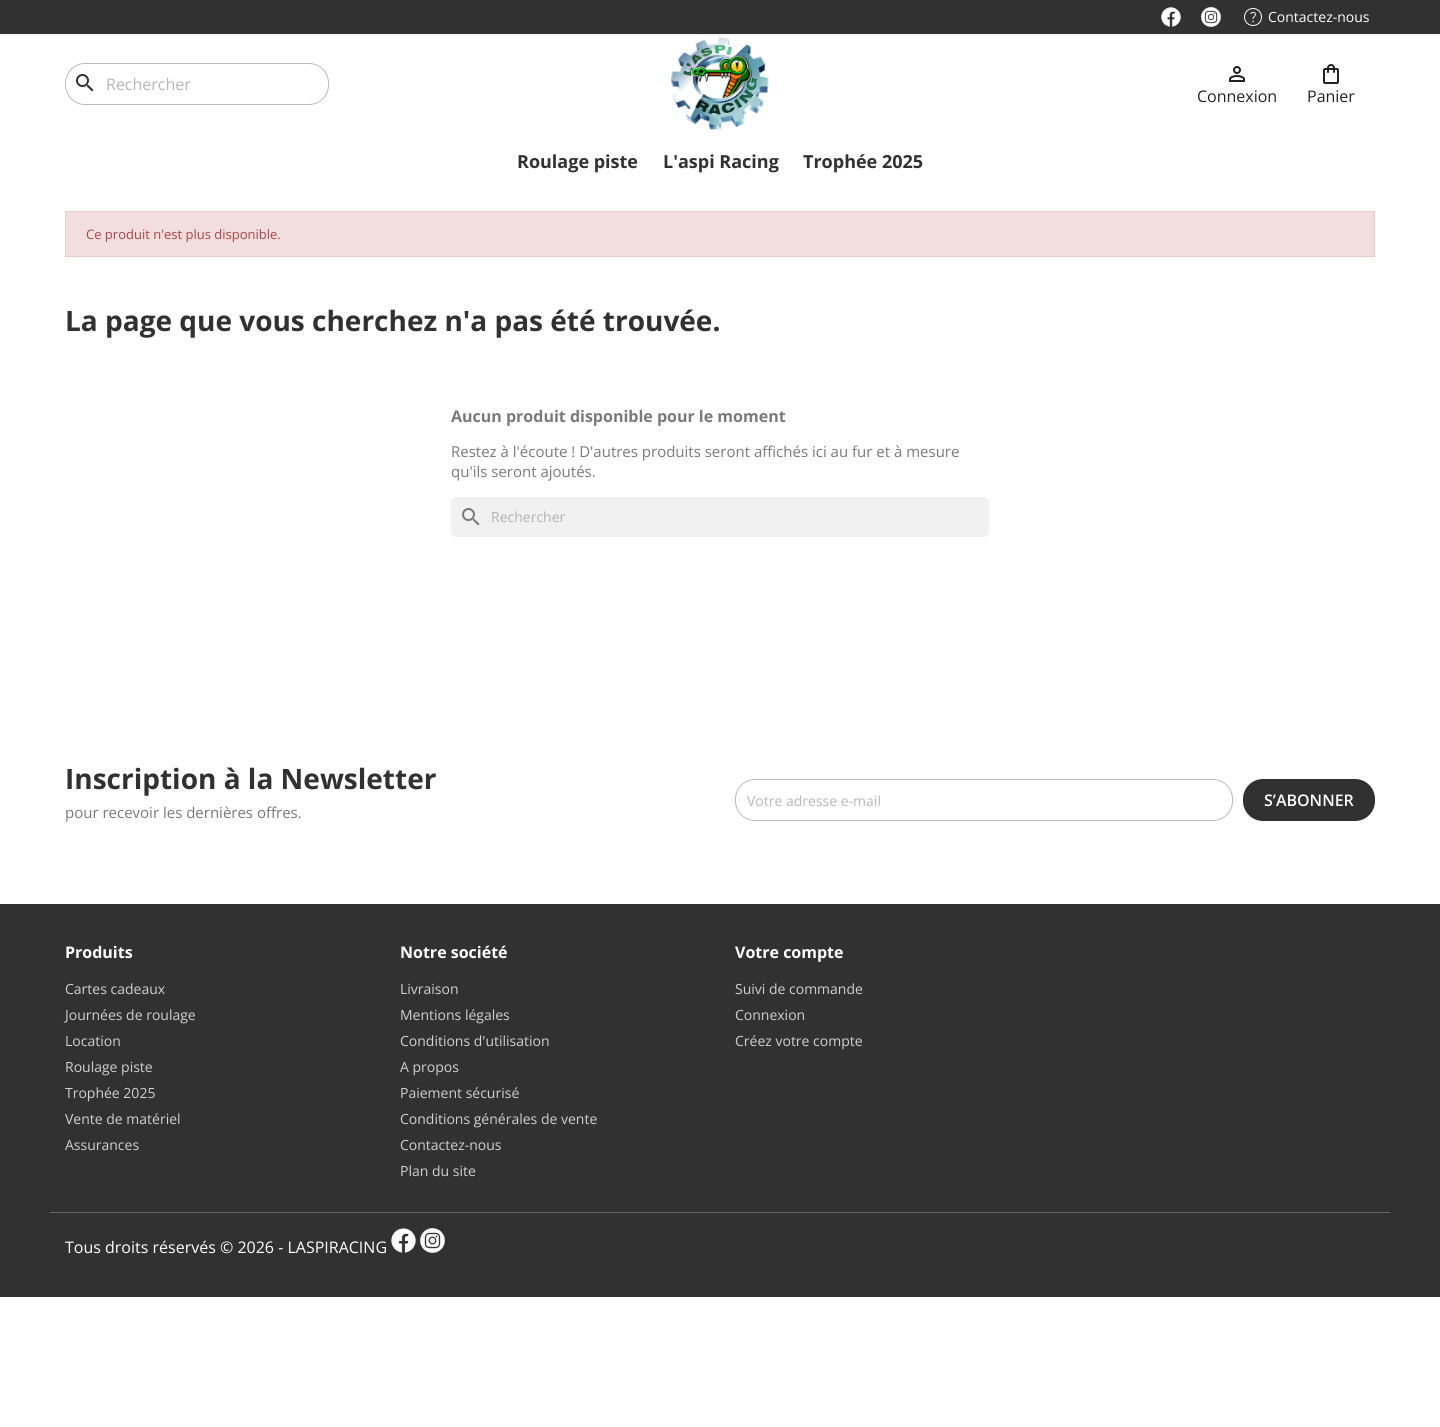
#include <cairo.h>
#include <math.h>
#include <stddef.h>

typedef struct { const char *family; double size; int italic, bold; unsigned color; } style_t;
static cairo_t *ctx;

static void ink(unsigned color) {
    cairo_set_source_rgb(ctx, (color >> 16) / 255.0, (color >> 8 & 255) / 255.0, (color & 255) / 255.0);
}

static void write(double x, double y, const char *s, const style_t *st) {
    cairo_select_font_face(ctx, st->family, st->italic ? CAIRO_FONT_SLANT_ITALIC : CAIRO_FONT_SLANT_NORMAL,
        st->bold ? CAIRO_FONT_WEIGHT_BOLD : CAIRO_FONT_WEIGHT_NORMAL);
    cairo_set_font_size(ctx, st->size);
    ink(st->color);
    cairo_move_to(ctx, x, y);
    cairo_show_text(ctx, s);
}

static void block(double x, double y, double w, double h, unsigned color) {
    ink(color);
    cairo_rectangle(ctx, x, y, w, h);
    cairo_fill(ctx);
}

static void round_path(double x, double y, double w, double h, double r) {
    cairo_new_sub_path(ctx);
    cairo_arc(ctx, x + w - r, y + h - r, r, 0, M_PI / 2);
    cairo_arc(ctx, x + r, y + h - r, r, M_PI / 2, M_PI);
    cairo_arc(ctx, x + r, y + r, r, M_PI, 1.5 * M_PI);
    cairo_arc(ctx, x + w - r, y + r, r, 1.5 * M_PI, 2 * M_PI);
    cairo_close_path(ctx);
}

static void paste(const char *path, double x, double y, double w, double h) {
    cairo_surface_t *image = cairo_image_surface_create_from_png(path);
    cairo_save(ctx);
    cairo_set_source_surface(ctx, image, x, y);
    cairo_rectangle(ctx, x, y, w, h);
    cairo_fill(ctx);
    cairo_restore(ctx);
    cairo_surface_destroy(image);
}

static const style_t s1 = {"Open Sans", 14, 0, 0, 0xffffff};
static const style_t s2 = {"Open Sans", 16, 0, 0, 0xb7b7b7};
static const style_t s3 = {"Open Sans", 16, 0, 0, 0x232323};
static const style_t s4 = {"Open Sans", 18, 0, 1, 0x313131};
static const style_t s5 = {"Open Sans", 13, 0, 0, 0xa94442};
static const style_t s6 = {"Open Sans", 28, 0, 1, 0x313131};
static const style_t s7 = {"Open Sans", 16, 0, 1, 0x7a7a7a};
static const style_t s8 = {"Open Sans", 15, 0, 0, 0x7a7a7a};
static const style_t s9 = {"Open Sans", 14, 0, 0, 0xb1b1b1};
static const style_t s10 = {"Open Sans", 14, 0, 0, 0xb7b7b7};
static const style_t s11 = {"Open Sans SemiBold", 16, 0, 0, 0xffffff};
static const style_t s12 = {"Open Sans", 16, 0, 1, 0xffffff};
static const style_t s13 = {"Open Sans", 14, 0, 0, 0xd1d1d1};
static const style_t s14 = {"Open Sans", 16, 0, 0, 0xffffff};

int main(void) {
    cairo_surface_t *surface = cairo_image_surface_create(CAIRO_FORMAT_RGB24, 1440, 1427);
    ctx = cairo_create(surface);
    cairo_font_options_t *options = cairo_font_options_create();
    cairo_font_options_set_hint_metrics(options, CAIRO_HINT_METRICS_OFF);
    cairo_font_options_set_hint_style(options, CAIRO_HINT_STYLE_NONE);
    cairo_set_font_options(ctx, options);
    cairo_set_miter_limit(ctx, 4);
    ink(0xffffff);
    cairo_paint(ctx);
    block(0, 0, 1440, 34, 0x313131);
    block(0, 34, 1440, 2, 0xf6f6f6);
    paste("pic1.png", 1161, 7, 20, 20);
    paste("pic2.png", 1201, 7, 20, 20);
    paste("pic3.png", 1244, 8, 18, 18);
    write(1268, 22, "Contactez-nous", &s1);
    round_path(65.5, 63.5, 263, 41, 19.5);
    ink(0xbcbcbc);
    cairo_set_line_width(ctx, 1);
    cairo_stroke(ctx);
    paste("pic4.png", 76, 74, 18, 18);
    write(106, 90, "Rechercher", &s2);
    paste("pic5.png", 670, 37, 99, 93);
    paste("pic6.png", 1229, 66, 16, 16);
    write(1197, 102, "Connexion", &s3);
    paste("pic7.png", 1323, 64, 16, 20);
    write(1307, 102, "Panier", &s3);
    write(517, 168, "Roulage piste", &s4);
    write(663, 168, "L'aspi Racing", &s4);
    write(803, 168, "Trophée 2025", &s4);
    ink(0xf2dede);
    cairo_rectangle(ctx, 65.5, 211.5, 1309, 45);
    cairo_fill_preserve(ctx);
    ink(0xebcccc);
    cairo_stroke(ctx);
    write(86, 239, "Ce produit n'est plus disponible.", &s5);
    write(65, 331, "La page que vous cherchez n'a pas été trouvée.", &s6);
    write(451, 422, "Aucun produit disponible pour le moment", &s7);
    write(451, 457, "Restez à l'écoute ! D'autres produits seront affichés ici au fur et à mesure", &s8);
    write(451, 477, "qu'ils seront ajoutés.", &s8);
    ink(0xf1f1f1);
    round_path(451, 497, 538, 40, 5);
    cairo_fill(ctx);
    paste("pic8.png", 462, 508, 18, 18);
    write(491, 522, "Rechercher", &s9);
    write(65, 789, "Inscription à la Newsletter", &s6);
    write(65, 818, "pour recevoir les dernières offres.", &s8);
    round_path(735.5, 779.5, 497, 41, 19.5);
    ink(0xbcbcbc);
    cairo_stroke(ctx);
    write(747, 806, "Votre adresse e-mail", &s10);
    ink(0x313131);
    round_path(1243, 779, 132, 42, 20);
    cairo_fill(ctx);
    write(1264, 806, "S’ABONNER", &s11);
    block(0, 904, 1440, 393, 0x313131);
    write(65, 958, "Produits", &s12);
    write(65, 994, "Cartes cadeaux", &s13);
    write(65, 1020, "Journées de roulage", &s13);
    write(65, 1046, "Location", &s13);
    write(65, 1072, "Roulage piste", &s13);
    write(65, 1098, "Trophée 2025", &s13);
    write(65, 1124, "Vente de matériel", &s13);
    write(65, 1150, "Assurances", &s13);
    write(400, 958, "Notre société", &s12);
    write(400, 994, "Livraison", &s13);
    write(400, 1020, "Mentions légales", &s13);
    write(400, 1046, "Conditions d'utilisation", &s13);
    write(400, 1072, "A propos", &s13);
    write(400, 1098, "Paiement sécurisé", &s13);
    write(400, 1124, "Conditions générales de vente", &s13);
    write(400, 1150, "Contactez-nous", &s13);
    write(400, 1176, "Plan du site", &s13);
    write(735, 958, "Votre compte", &s12);
    write(735, 994, "Suivi de commande", &s13);
    write(735, 1020, "Connexion", &s13);
    write(735, 1046, "Créez votre compte", &s13);
    block(50, 1212, 1340, 1, 0x666666);
    write(65, 1253, "Tous droits réservés © 2026 - LASPIRACING", &s14);
    paste("pic9.png", 391, 1228, 25, 25);
    paste("pic10.png", 420, 1228, 25, 25);
    cairo_surface_write_to_png(surface, "screenshot.png");
    cairo_font_options_destroy(options);
    cairo_destroy(ctx);
    cairo_surface_destroy(surface);
    return 0;
}
